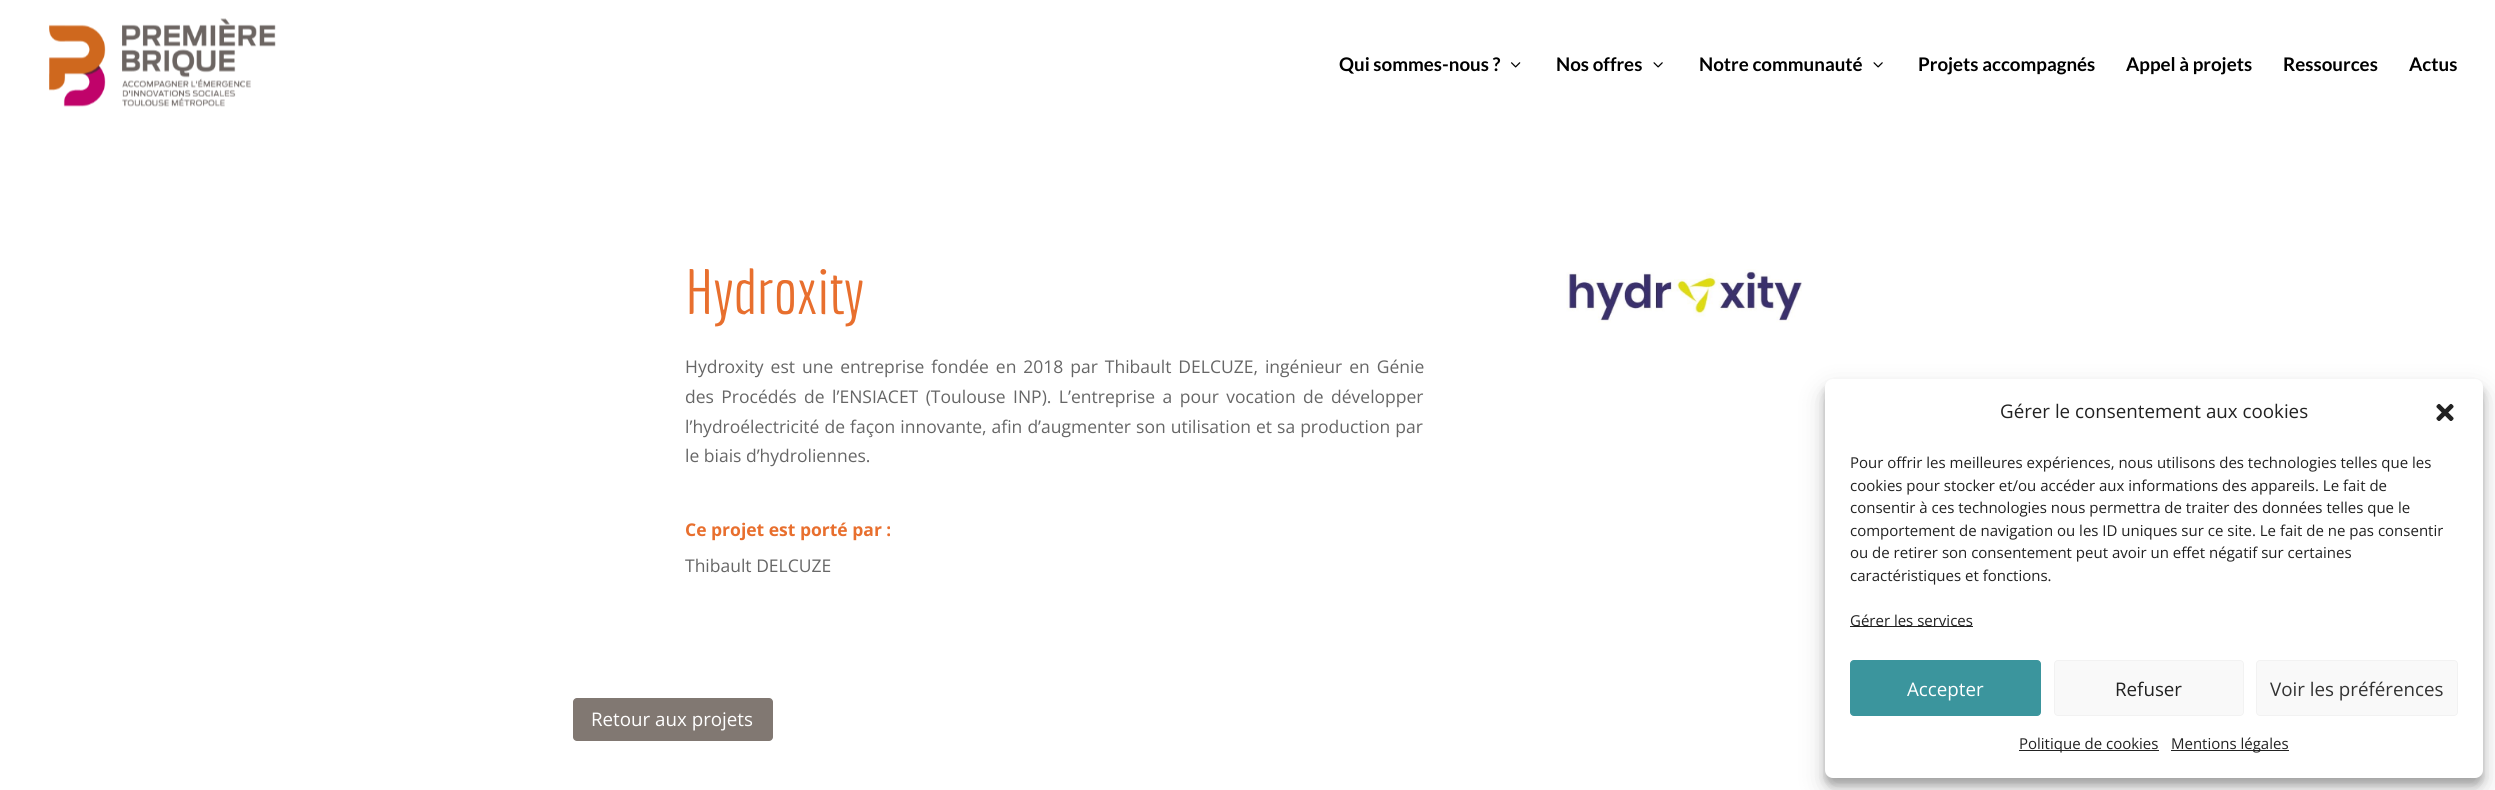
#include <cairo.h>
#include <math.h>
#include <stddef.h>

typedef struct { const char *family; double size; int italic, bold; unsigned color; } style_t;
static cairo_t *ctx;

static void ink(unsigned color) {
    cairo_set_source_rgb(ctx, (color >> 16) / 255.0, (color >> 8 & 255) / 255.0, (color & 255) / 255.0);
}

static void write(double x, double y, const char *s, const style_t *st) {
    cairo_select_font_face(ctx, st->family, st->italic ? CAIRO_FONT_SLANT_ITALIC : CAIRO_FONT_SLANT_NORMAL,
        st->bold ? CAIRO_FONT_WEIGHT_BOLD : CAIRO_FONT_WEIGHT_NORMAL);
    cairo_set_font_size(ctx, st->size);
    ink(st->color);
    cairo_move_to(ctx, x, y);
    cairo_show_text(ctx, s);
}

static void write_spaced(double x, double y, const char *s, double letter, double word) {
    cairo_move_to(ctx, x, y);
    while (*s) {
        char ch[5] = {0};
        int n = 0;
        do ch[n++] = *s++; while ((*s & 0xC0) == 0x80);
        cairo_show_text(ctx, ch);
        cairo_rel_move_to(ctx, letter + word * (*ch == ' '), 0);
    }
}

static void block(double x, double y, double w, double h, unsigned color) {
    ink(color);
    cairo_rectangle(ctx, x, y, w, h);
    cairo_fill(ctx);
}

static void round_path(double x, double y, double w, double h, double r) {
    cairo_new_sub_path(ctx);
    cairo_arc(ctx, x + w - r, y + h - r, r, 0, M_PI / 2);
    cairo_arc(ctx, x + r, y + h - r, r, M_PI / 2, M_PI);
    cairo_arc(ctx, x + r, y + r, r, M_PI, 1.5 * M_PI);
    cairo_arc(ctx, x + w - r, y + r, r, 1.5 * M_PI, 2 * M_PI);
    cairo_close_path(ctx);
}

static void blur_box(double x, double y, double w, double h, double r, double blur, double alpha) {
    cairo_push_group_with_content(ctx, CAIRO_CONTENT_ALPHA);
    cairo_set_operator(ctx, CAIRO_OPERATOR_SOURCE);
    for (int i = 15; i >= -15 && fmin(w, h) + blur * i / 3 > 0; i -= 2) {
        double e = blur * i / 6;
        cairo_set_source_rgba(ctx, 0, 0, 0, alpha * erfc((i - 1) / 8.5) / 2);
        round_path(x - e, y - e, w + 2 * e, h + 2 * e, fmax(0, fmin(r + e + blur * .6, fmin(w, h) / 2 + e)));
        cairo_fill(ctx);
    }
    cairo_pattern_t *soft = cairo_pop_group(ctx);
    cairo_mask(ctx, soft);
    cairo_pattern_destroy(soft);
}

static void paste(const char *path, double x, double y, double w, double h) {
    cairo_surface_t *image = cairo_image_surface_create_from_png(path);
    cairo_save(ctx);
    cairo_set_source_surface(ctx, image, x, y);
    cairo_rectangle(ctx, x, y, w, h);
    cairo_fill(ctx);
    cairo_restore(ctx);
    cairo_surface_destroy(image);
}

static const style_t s1 = {"Lato", 18.75, 0, 1, 0x000000};
static const style_t s2 = {"Economica", 62.5, 0, 0, 0xe86f2e};
static const style_t s3 = {"Open Sans", 17.5, 0, 0, 0x666666};
static const style_t s4 = {"Open Sans", 17.5, 0, 1, 0xe86f2e};
static const style_t s5 = {"Open Sans", 18.75, 0, 0, 0xffffff};
static const style_t s6 = {"Open Sans", 18.75, 0, 0, 0x222222};
static const style_t s7 = {"Open Sans", 15, 0, 0, 0x222222};
static const style_t s8 = {"Open Sans", 18.75, 0, 0, 0x333333};

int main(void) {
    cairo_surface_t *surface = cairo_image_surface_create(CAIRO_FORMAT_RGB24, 2495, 790);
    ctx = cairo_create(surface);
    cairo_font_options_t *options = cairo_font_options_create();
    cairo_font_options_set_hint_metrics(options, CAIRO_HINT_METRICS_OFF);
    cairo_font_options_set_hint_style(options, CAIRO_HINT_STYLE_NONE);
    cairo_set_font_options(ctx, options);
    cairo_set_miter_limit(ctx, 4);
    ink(0xffffff);
    cairo_paint(ctx);
    paste("pic1.png", 49, 18, 227, 89);
    write(1339, 71, "Qui sommes-nous ?", &s1);
    paste("pic2.png", 1511, 62, 10, 6);
    write(1556, 71, "Nos offres", &s1);
    paste("pic3.png", 1653, 62, 10, 6);
    write(1699, 71, "Notre communauté", &s1);
    paste("pic3.png", 1873, 62, 10, 6);
    write(1918, 71, "Projets accompagnés", &s1);
    write(2126, 71, "Appel à projets", &s1);
    write(2283, 71, "Ressources", &s1);
    write(2409, 71, "Actus", &s1);
    write(685, 314, "Hydroxity", &s2);
    cairo_select_font_face(ctx, "Open Sans", CAIRO_FONT_SLANT_NORMAL, CAIRO_FONT_WEIGHT_NORMAL);
    cairo_set_font_size(ctx, 17.5);
    ink(0x666666);
    write_spaced(685, 373, "Hydroxity est une entreprise fondée en 2018 par Thibault DELCUZE, ingénieur en Génie", 0, 2.4);
    write_spaced(685, 403, "des Procédés de l’ENSIACET (Toulouse INP). L’entreprise a pour vocation de développer", 0, 2.9);
    write_spaced(685, 433, "l’hydroélectricité de façon innovante, afin d’augmenter son utilisation et sa production par", 0, 0.5);
    write(685, 462, "le biais d’hydroliennes.", &s3);
    paste("pic4.png", 1566, 269, 236, 54);
    write(685, 536, "Ce projet est porté par :", &s4);
    write(685, 572, "Thibault DELCUZE", &s3);
    ink(0x817872);
    round_path(573, 698, 200, 43, 4);
    cairo_fill(ctx);
    write(591, 726, "Retour aux projets", &s5);
    ink(0x000000);
    blur_box(1825, 386, 658, 399, 8, 4, 0.23);
    blur_box(1825, 391, 658, 399, 8, 12.5, 0.19);
    ink(0xffffff);
    round_path(1825, 379, 658, 399, 8);
    cairo_fill(ctx);
    write(2000, 418, "Gérer le consentement aux cookies", &s6);
    paste("pic5.png", 2436, 403, 18, 18);
    write(1850, 468, "Pour offrir les meilleures expériences, nous utilisons des technologies telles que les", &s7);
    write(1850, 491, "cookies pour stocker et/ou accéder aux informations des appareils. Le fait de", &s7);
    write(1850, 513, "consentir à ces technologies nous permettra de traiter des données telles que le", &s7);
    write(1850, 536, "comportement de navigation ou les ID uniques sur ce site. Le fait de ne pas consentir", &s7);
    write(1850, 558, "ou de retirer son consentement peut avoir un effet négatif sur certaines", &s7);
    write(1850, 581, "caractéristiques et fonctions.", &s7);
    block(1850, 626, 123, 1, 0x222222);
    write(1850, 626, "Gérer les services", &s7);
    ink(0x3b959d);
    round_path(1850.5, 660.5, 190, 55, 3.5);
    cairo_fill_preserve(ctx);
    cairo_set_line_width(ctx, 1);
    cairo_stroke(ctx);
    write(1907, 696, "Accepter", &s5);
    ink(0xf9f9f9);
    round_path(2054.5, 660.5, 189, 55, 3.5);
    cairo_fill_preserve(ctx);
    ink(0xf2f2f2);
    cairo_stroke(ctx);
    write(2115, 696, "Refuser", &s6);
    ink(0xf9f9f9);
    round_path(2256.5, 660.5, 201, 55, 3.5);
    cairo_fill_preserve(ctx);
    ink(0xf2f2f2);
    cairo_stroke(ctx);
    write(2270, 696, "Voir les préférences", &s8);
    block(2019, 750, 140, 1, 0x222222);
    write(2019, 749, "Politique de cookies", &s7);
    block(2171, 750, 118, 1, 0x222222);
    write(2171, 749, "Mentions légales", &s7);
    cairo_surface_write_to_png(surface, "screenshot.png");
    cairo_font_options_destroy(options);
    cairo_destroy(ctx);
    cairo_surface_destroy(surface);
    return 0;
}
